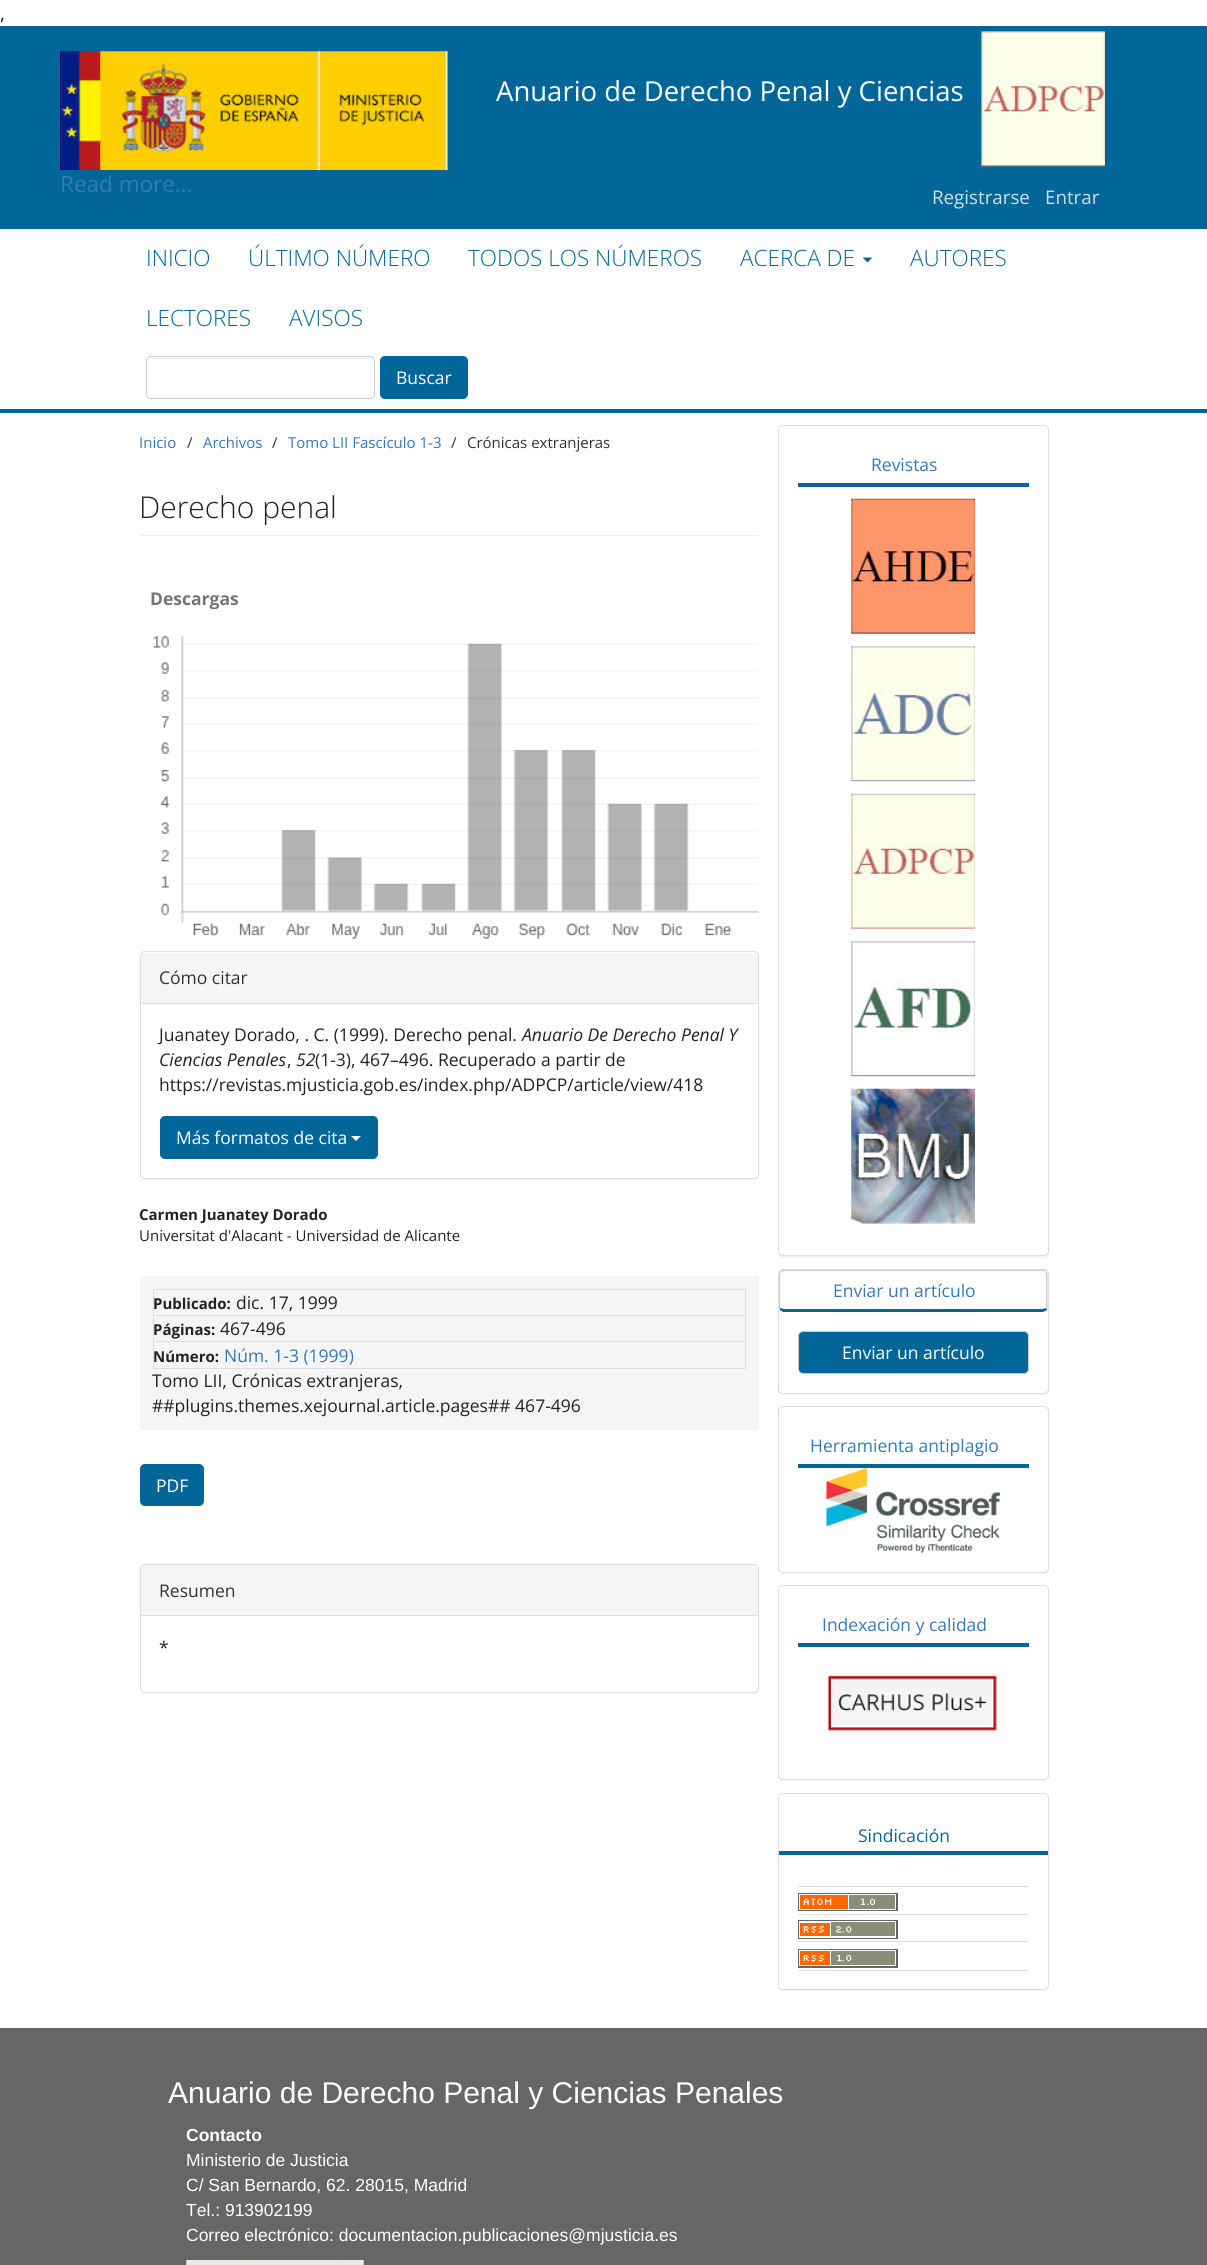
#include <cairo.h>
#include <math.h>
#include <stddef.h>

typedef struct { const char *family; double size; int italic, bold; unsigned color; } style_t;
static cairo_t *ctx;

static void ink(unsigned color) {
    cairo_set_source_rgb(ctx, (color >> 16) / 255.0, (color >> 8 & 255) / 255.0, (color & 255) / 255.0);
}

static void write(double x, double y, const char *s, const style_t *st) {
    cairo_select_font_face(ctx, st->family, st->italic ? CAIRO_FONT_SLANT_ITALIC : CAIRO_FONT_SLANT_NORMAL,
        st->bold ? CAIRO_FONT_WEIGHT_BOLD : CAIRO_FONT_WEIGHT_NORMAL);
    cairo_set_font_size(ctx, st->size);
    ink(st->color);
    cairo_move_to(ctx, x, y);
    cairo_show_text(ctx, s);
}

static void block(double x, double y, double w, double h, unsigned color) {
    ink(color);
    cairo_rectangle(ctx, x, y, w, h);
    cairo_fill(ctx);
}

static void round_path(double x, double y, double w, double h, double r) {
    cairo_new_sub_path(ctx);
    cairo_arc(ctx, x + w - r, y + h - r, r, 0, M_PI / 2);
    cairo_arc(ctx, x + r, y + h - r, r, M_PI / 2, M_PI);
    cairo_arc(ctx, x + r, y + r, r, M_PI, 1.5 * M_PI);
    cairo_arc(ctx, x + w - r, y + r, r, 1.5 * M_PI, 2 * M_PI);
    cairo_close_path(ctx);
}

static void blur_box(double x, double y, double w, double h, double r, double blur, double alpha) {
    cairo_push_group_with_content(ctx, CAIRO_CONTENT_ALPHA);
    cairo_set_operator(ctx, CAIRO_OPERATOR_SOURCE);
    for (int i = 15; i >= -15 && fmin(w, h) + blur * i / 3 > 0; i -= 2) {
        double e = blur * i / 6;
        cairo_set_source_rgba(ctx, 0, 0, 0, alpha * erfc((i - 1) / 8.5) / 2);
        round_path(x - e, y - e, w + 2 * e, h + 2 * e, fmax(0, fmin(r + e + blur * .6, fmin(w, h) / 2 + e)));
        cairo_fill(ctx);
    }
    cairo_pattern_t *soft = cairo_pop_group(ctx);
    cairo_mask(ctx, soft);
    cairo_pattern_destroy(soft);
}

static void paste(const char *path, double x, double y, double w, double h) {
    cairo_surface_t *image = cairo_image_surface_create_from_png(path);
    cairo_save(ctx);
    cairo_set_source_surface(ctx, image, x, y);
    cairo_rectangle(ctx, x, y, w, h);
    cairo_fill(ctx);
    cairo_restore(ctx);
    cairo_surface_destroy(image);
}

static const style_t s1 = {"Open Sans", 18.75, 0, 0, 0x222222};
static const style_t s2 = {"Open Sans", 22.5, 0, 0, 0x337ab7};
static const style_t s3 = {"Open Sans", 27.5, 0, 0, 0xffffff};
static const style_t s4 = {"Open Sans", 18.75, 0, 0, 0xcce0eb};
static const style_t s5 = {"Open Sans Light", 22.5, 0, 0, 0x026699};
static const style_t s6 = {"Open Sans", 17.5, 0, 0, 0xffffff};
static const style_t s7 = {"Open Sans", 15, 0, 0, 0x337ab7};
static const style_t s8 = {"Open Sans", 15, 0, 0, 0x333333};
static const style_t s9 = {"Open Sans Light", 30, 0, 0, 0x222222};
static const style_t s10 = {"Open Sans", 17.5, 0, 1, 0x757575};
static const style_t s11 = {"Open Sans", 17.5, 0, 0, 0x333333};
static const style_t s12 = {"Open Sans", 17.5, 0, 0, 0x222222};
static const style_t s13 = {"Open Sans", 17.5, 1, 0, 0x222222};
static const style_t s14 = {"Open Sans", 15, 0, 1, 0x222222};
static const style_t s15 = {"Open Sans", 15, 0, 0, 0x222222};
static const style_t s16 = {"Open Sans", 17.5, 0, 0, 0x337ab7};
static const style_t s17 = {"Open Sans", 17.5, 0, 0, 0x026699};
static const style_t s18 = {"Liberation Sans", 30, 0, 0, 0xffffff};
static const style_t s19 = {"Liberation Sans", 17.5, 0, 1, 0xffffff};
static const style_t s20 = {"Liberation Sans", 17.5, 0, 0, 0xffffff};

int main(void) {
    cairo_surface_t *surface = cairo_image_surface_create(CAIRO_FORMAT_RGB24, 1207, 2265);
    ctx = cairo_create(surface);
    cairo_font_options_t *options = cairo_font_options_create();
    cairo_font_options_set_hint_metrics(options, CAIRO_HINT_METRICS_OFF);
    cairo_font_options_set_hint_style(options, CAIRO_HINT_STYLE_NONE);
    cairo_set_font_options(ctx, options);
    cairo_set_miter_limit(ctx, 4);
    ink(0xffffff);
    cairo_paint(ctx);
    write(0, 20, ",", &s1);
    block(0, 26, 1207, 203, 0x026699);
    paste("pic1.png", 60, 51, 388, 119);
    write(60, 192, "Read more...", &s2);
    write(496, 101, "Anuario de Derecho Penal y Ciencias", &s3);
    paste("pic2.png", 981, 31, 124, 136);
    write(932, 204, "Registrarse", &s4);
    write(1045, 204, "Entrar", &s4);
    block(0, 409, 1207, 4, 0x026699);
    write(146, 266, "INICIO", &s5);
    write(248, 266, "ÚLTIMO NÚMERO", &s5);
    write(468, 266, "TODOS LOS NÚMEROS", &s5);
    write(740, 266, "ACERCA DE", &s5);
    cairo_new_path(ctx);
    cairo_move_to(ctx, 862.5, 257.5);
    cairo_line_to(ctx, 872.5, 257.5);
    cairo_line_to(ctx, 867.5, 262.5);
    cairo_close_path(ctx);
    cairo_fill(ctx);
    write(910, 266, "AUTORES", &s5);
    write(146, 326, "LECTORES", &s5);
    write(289, 326, "AVISOS", &s5);
    ink(0xececec);
    cairo_new_path(ctx);
    cairo_move_to(ctx, 151, 359);
    cairo_line_to(ctx, 370, 359);
    cairo_curve_to(ctx, 372, 359, 374, 360, 374, 362);
    cairo_curve_to(ctx, 374, 360, 372, 358, 370, 358);
    cairo_line_to(ctx, 152, 358);
    cairo_curve_to(ctx, 151, 358, 149, 359, 149, 360);
    cairo_close_path(ctx);
    cairo_fill(ctx);
    round_path(146.5, 356.5, 228, 42, 4.5);
    ink(0xcccccc);
    cairo_set_line_width(ctx, 1);
    cairo_stroke(ctx);
    ink(0x026699);
    round_path(380.5, 356.5, 87, 42, 4.5);
    cairo_fill_preserve(ctx);
    cairo_stroke(ctx);
    write(396, 384, "Buscar", &s6);
    write(139, 448, "Inicio", &s7);
    write(187, 448, "/", &s8);
    write(203, 448, "Archivos", &s7);
    write(272, 448, "/", &s8);
    write(288, 448, "Tomo LII Fascículo 1-3", &s7);
    write(451, 448, "/", &s8);
    write(467, 448, "Crónicas extranjeras", &s8);
    block(140, 535, 619, 1, 0xeeeeee);
    write(139, 518, "Derecho penal", &s9);
    write(150, 605, "Descargas", &s10);
    paste("pic3.png", 152, 636, 607, 303);
    ink(0x000000);
    blur_box(140, 953, 619, 227, 5, 0.5, 0.05);
    ink(0xffffff);
    round_path(140.5, 951.5, 618, 227, 4.5);
    cairo_fill_preserve(ctx);
    ink(0xdddddd);
    cairo_stroke(ctx);
    ink(0xf5f5f5);
    cairo_new_path(ctx);
    cairo_move_to(ctx, 145, 953);
    cairo_line_to(ctx, 754, 953);
    cairo_curve_to(ctx, 756, 953, 758, 955, 758, 957);
    cairo_line_to(ctx, 758, 1004);
    cairo_line_to(ctx, 141, 1004);
    cairo_line_to(ctx, 141, 957);
    cairo_curve_to(ctx, 141, 955, 143, 953, 145, 953);
    cairo_close_path(ctx);
    cairo_fill(ctx);
    block(141, 1003, 617, 1, 0xdddddd);
    write(159, 984, "Cómo citar", &s11);
    write(159, 1041, "Juanatey Dorado, . C. (1999). Derecho penal.", &s12);
    write(522, 1041, "Anuario De Derecho Penal Y", &s13);
    write(159, 1066, "Ciencias Penales", &s13);
    write(287, 1066, ",", &s12);
    write(296, 1066, "52", &s13);
    write(315, 1066, "(1-3), 467–496. Recuperado a partir de", &s12);
    write(159, 1091, "https://revistas.mjusticia.gob.es/index.php/ADPCP/article/view/418", &s12);
    ink(0x026699);
    round_path(160.5, 1116.5, 217, 42, 4.5);
    cairo_fill_preserve(ctx);
    cairo_stroke(ctx);
    write(176, 1144, "Más formatos de cita", &s6);
    cairo_new_path(ctx);
    cairo_move_to(ctx, 351, 1136);
    cairo_line_to(ctx, 361, 1136);
    cairo_line_to(ctx, 356, 1141);
    cairo_close_path(ctx);
    cairo_fill(ctx);
    write(139, 1220, "Carmen Juanatey Dorado", &s14);
    write(139, 1241, "Universitat d'Alacant - Universidad de Alicante", &s15);
    block(140, 1276, 619, 154, 0xf5f5f5);
    cairo_rectangle(ctx, 153.5, 1289.5, 592, 26);
    ink(0xdddddd);
    cairo_stroke(ctx);
    write(153, 1309, "Publicado:", &s14);
    write(236, 1309, "dic. 17, 1999", &s12);
    cairo_rectangle(ctx, 153.5, 1315.5, 592, 27);
    ink(0xdddddd);
    cairo_stroke(ctx);
    write(153, 1335, "Páginas:", &s14);
    write(220, 1335, "467-496", &s12);
    block(154, 1342, 591, 1, 0xf5f5f5);
    cairo_rectangle(ctx, 153.5, 1341.5, 592, 27);
    ink(0xdddddd);
    cairo_stroke(ctx);
    write(153, 1362, "Número:", &s14);
    write(224, 1362, "Núm. 1-3 (1999)", &s16);
    write(152, 1387, "Tomo LII, Crónicas extranjeras,", &s12);
    write(152, 1412, "##plugins.themes.xejournal.article.pages## 467-496", &s12);
    ink(0x026699);
    round_path(140.5, 1464.5, 63, 41, 4.5);
    cairo_fill_preserve(ctx);
    cairo_stroke(ctx);
    write(156, 1492, "PDF", &s6);
    ink(0x000000);
    blur_box(140, 1565, 619, 129, 5, 0.5, 0.05);
    ink(0xffffff);
    round_path(140.5, 1564.5, 618, 128, 4.5);
    cairo_fill_preserve(ctx);
    ink(0xdddddd);
    cairo_stroke(ctx);
    ink(0xf5f5f5);
    cairo_new_path(ctx);
    cairo_move_to(ctx, 145, 1565);
    cairo_line_to(ctx, 754, 1565);
    cairo_curve_to(ctx, 756, 1565, 758, 1567, 758, 1569);
    cairo_line_to(ctx, 758, 1616);
    cairo_line_to(ctx, 141, 1616);
    cairo_line_to(ctx, 141, 1569);
    cairo_curve_to(ctx, 141, 1567, 143, 1565, 145, 1565);
    cairo_close_path(ctx);
    cairo_fill(ctx);
    block(141, 1615, 617, 1, 0xdddddd);
    write(159, 1597, "Resumen", &s11);
    write(159, 1654, "*", &s12);
    ink(0x000000);
    blur_box(778, 426, 271, 832, 5, 0.5, 0.05);
    ink(0xffffff);
    round_path(778.5, 425.5, 270, 830, 4.5);
    cairo_fill_preserve(ctx);
    ink(0xdddddd);
    cairo_stroke(ctx);
    block(798, 483, 231, 4, 0x026699);
    write(871, 471, "Revistas", &s16);
    paste("pic4.png", 851, 498, 124, 136);
    paste("pic5.png", 851, 646, 124, 136);
    paste("pic6.png", 851, 793, 124, 136);
    paste("pic7.png", 851, 941, 124, 136);
    paste("pic8.png", 851, 1088, 124, 136);
    ink(0x000000);
    blur_box(778, 1270, 271, 125, 5, 0.5, 0.05);
    ink(0xffffff);
    round_path(778.5, 1269.5, 270, 124, 4.5);
    cairo_fill_preserve(ctx);
    ink(0xdddddd);
    cairo_stroke(ctx);
    ink(0xcccccc);
    cairo_new_path(ctx);
    cairo_move_to(ctx, 784, 1270);
    cairo_curve_to(ctx, 782, 1270, 781, 1271, 780, 1272);
    cairo_line_to(ctx, 781, 1272);
    cairo_line_to(ctx, 784, 1271);
    cairo_line_to(ctx, 1043, 1271);
    cairo_line_to(ctx, 1045, 1272);
    cairo_line_to(ctx, 1046, 1271);
    cairo_curve_to(ctx, 1045, 1270, 1044, 1270, 1042, 1270);
    cairo_close_path(ctx);
    cairo_fill(ctx);
    cairo_new_path(ctx);
    cairo_move_to(ctx, 1047.5, 1309.5);
    cairo_line_to(ctx, 1047, 1310.5);
    cairo_line_to(ctx, 1046, 1308);
    cairo_line_to(ctx, 1046, 1275);
    cairo_curve_to(ctx, 1046, 1274, 1046, 1273, 1045, 1272.5);
    cairo_line_to(ctx, 1046, 1271.5);
    cairo_line_to(ctx, 1047.5, 1273);
    cairo_close_path(ctx);
    cairo_fill(ctx);
    ink(0x026699);
    cairo_new_path(ctx);
    cairo_move_to(ctx, 1047, 1310);
    cairo_curve_to(ctx, 1045, 1311, 1044, 1312, 1042, 1312);
    cairo_line_to(ctx, 783, 1312);
    cairo_line_to(ctx, 780, 1310);
    cairo_line_to(ctx, 780, 1308);
    cairo_line_to(ctx, 784, 1309);
    cairo_line_to(ctx, 1042, 1309);
    cairo_line_to(ctx, 1046, 1308);
    cairo_close_path(ctx);
    cairo_fill(ctx);
    ink(0xcccccc);
    cairo_new_path(ctx);
    cairo_move_to(ctx, 780.5, 1271.5);
    cairo_curve_to(ctx, 779.5, 1272.5, 779, 1273.5, 779, 1275);
    cairo_line_to(ctx, 779, 1308);
    cairo_curve_to(ctx, 779, 1308.5, 779, 1309.5, 779.5, 1310);
    cairo_line_to(ctx, 780, 1308);
    cairo_line_to(ctx, 780, 1275);
    cairo_curve_to(ctx, 780, 1274, 780.5, 1273, 781, 1272.5);
    cairo_close_path(ctx);
    cairo_fill(ctx);
    write(833, 1297, "Enviar un artículo", &s16);
    ink(0x026699);
    round_path(798.5, 1331.5, 230, 42, 4.5);
    cairo_fill_preserve(ctx);
    ink(0xcccccc);
    cairo_stroke(ctx);
    write(842, 1359, "Enviar un artículo", &s6);
    ink(0x000000);
    blur_box(778, 1408, 271, 166, 5, 0.5, 0.05);
    ink(0xffffff);
    round_path(778.5, 1406.5, 270, 166, 4.5);
    cairo_fill_preserve(ctx);
    ink(0xdddddd);
    cairo_stroke(ctx);
    block(798, 1464, 231, 4, 0x026699);
    write(810, 1452, "Herramienta antiplagio", &s16);
    paste("pic9.png", 826, 1468, 174, 85);
    ink(0x000000);
    blur_box(778, 1586, 271, 195, 5, 0.5, 0.05);
    ink(0xffffff);
    round_path(778.5, 1585.5, 270, 194, 4.5);
    cairo_fill_preserve(ctx);
    ink(0xdddddd);
    cairo_stroke(ctx);
    block(798, 1643, 231, 4, 0x026699);
    write(822, 1631, "Indexación y calidad", &s16);
    paste("pic10.png", 827, 1675, 170, 56);
    ink(0x000000);
    blur_box(778, 1794, 271, 197, 5, 0.5, 0.05);
    ink(0xffffff);
    round_path(778.5, 1793.5, 270, 196, 4.5);
    cairo_fill_preserve(ctx);
    ink(0xdddddd);
    cairo_stroke(ctx);
    block(779, 1851, 269, 4, 0x026699);
    write(858, 1842, "Sindicación", &s17);
    block(798, 1886, 231, 1, 0xdddddd);
    block(798, 1914, 231, 1, 0xdddddd);
    paste("pic11.png", 798, 1893, 100, 18);
    block(798, 1941, 231, 1, 0xdddddd);
    paste("pic12.png", 798, 1920, 100, 19);
    block(798, 1970, 231, 1, 0xdddddd);
    paste("pic13.png", 798, 1949, 100, 19);
    block(0, 2028, 1207, 237, 0x666666);
    write(168, 2103, "Anuario de Derecho Penal y Ciencias Penales", &s18);
    write(186, 2141, "Contacto", &s19);
    write(186, 2166, "Ministerio de Justicia", &s20);
    write(186, 2191, "C/ San Bernardo, 62. 28015, Madrid", &s20);
    write(186, 2216, "Tel.: 913902199", &s20);
    write(186, 2241, "Correo electrónico: documentacion.publicaciones@mjusticia.es", &s20);
    paste("pic14.png", 186, 2260, 178, 5);
    cairo_surface_write_to_png(surface, "screenshot.png");
    cairo_font_options_destroy(options);
    cairo_destroy(ctx);
    cairo_surface_destroy(surface);
    return 0;
}
